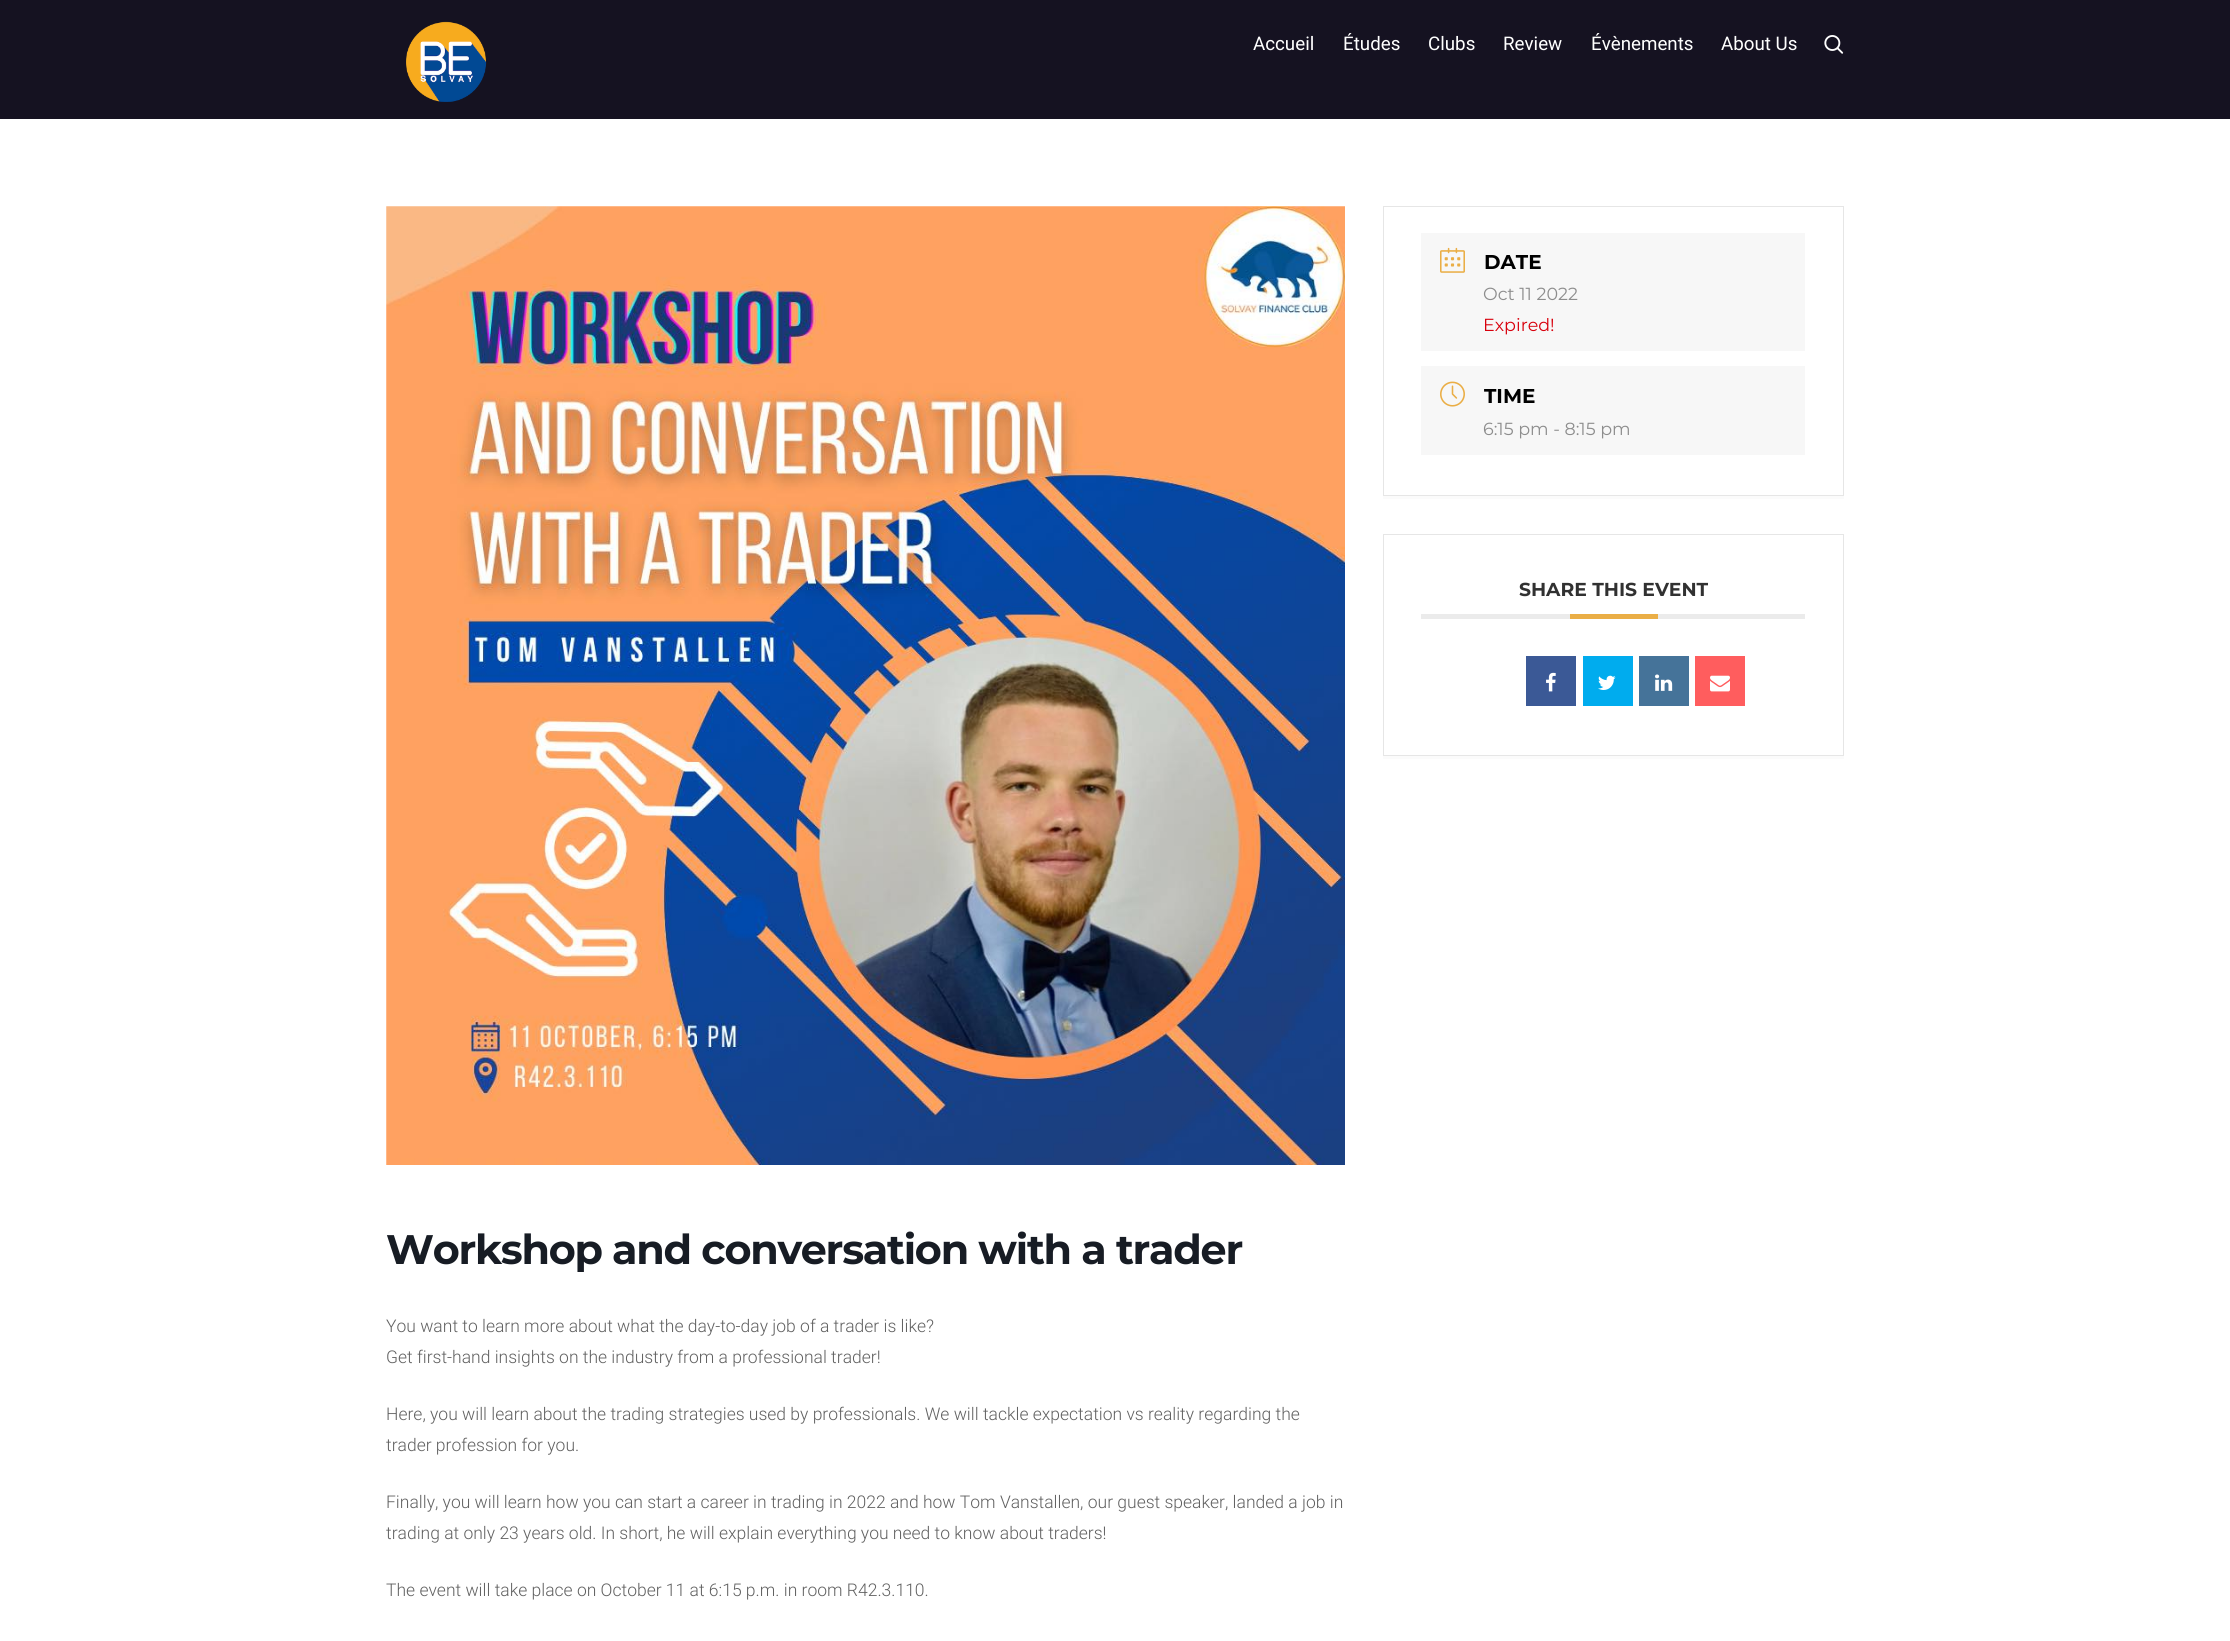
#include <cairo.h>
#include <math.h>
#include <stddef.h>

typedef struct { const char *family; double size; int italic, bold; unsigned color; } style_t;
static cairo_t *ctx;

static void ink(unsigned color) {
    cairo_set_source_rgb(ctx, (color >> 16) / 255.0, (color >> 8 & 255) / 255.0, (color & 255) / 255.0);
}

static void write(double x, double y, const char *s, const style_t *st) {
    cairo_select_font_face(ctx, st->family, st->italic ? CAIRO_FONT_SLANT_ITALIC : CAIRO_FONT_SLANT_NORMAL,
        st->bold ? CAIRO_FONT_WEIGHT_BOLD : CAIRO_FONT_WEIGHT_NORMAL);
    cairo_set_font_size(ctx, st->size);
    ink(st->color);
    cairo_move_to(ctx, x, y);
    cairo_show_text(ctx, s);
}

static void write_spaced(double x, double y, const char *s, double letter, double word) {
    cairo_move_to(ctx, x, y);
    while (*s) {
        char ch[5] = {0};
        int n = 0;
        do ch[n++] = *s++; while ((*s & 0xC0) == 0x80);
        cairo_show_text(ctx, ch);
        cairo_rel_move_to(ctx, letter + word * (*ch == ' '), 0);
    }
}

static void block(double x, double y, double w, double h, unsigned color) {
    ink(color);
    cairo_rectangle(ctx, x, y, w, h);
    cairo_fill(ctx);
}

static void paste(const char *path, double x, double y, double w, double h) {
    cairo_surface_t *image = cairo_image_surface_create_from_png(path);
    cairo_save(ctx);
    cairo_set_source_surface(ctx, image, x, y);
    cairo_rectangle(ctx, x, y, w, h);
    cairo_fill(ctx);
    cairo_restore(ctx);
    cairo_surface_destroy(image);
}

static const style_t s1 = {"Roboto", 18.75, 0, 0, 0xffffff};
static const style_t s2 = {"Montserrat", 20, 0, 1, 0x000000};
static const style_t s3 = {"Montserrat", 17.5, 0, 0, 0x8d8d8d};
static const style_t s4 = {"Montserrat", 17.5, 0, 0, 0xd8000c};
static const style_t s5 = {"Montserrat", 18.75, 0, 1, 0x313131};
static const style_t s6 = {"Roboto Light", 17.5, 0, 0, 0x616161};

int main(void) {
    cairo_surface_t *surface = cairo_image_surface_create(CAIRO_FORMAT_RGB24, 2230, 1641);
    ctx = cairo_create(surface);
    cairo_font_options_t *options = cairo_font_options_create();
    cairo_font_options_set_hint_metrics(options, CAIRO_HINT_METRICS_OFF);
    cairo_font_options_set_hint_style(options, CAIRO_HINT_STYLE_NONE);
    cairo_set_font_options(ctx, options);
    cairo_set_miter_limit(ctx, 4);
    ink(0xffffff);
    cairo_paint(ctx);
    block(0, 0, 2230, 119, 0x151221);
    paste("pic1.png", 406, 21, 81, 81);
    write(1253, 50, "Accueil", &s1);
    write(1343, 50, "Études", &s1);
    write(1428, 50, "Clubs", &s1);
    write(1503, 50, "Review", &s1);
    write(1591, 50, "Évènements", &s1);
    write(1721, 50, "About Us", &s1);
    paste("pic2.png", 1824, 35, 20, 19);
    ink(0xfbfbfb);
    cairo_new_path(ctx);
    cairo_move_to(ctx, 1383, 496);
    cairo_line_to(ctx, 1383, 499);
    cairo_line_to(ctx, 1844, 499);
    cairo_line_to(ctx, 1844, 209);
    cairo_line_to(ctx, 1844, 496);
    cairo_close_path(ctx);
    cairo_fill(ctx);
    cairo_rectangle(ctx, 1383.5, 206.5, 460, 289);
    ink(0xe6e6e6);
    cairo_set_line_width(ctx, 1);
    cairo_stroke(ctx);
    block(1421, 233, 384, 118, 0xf7f7f7);
    paste("pic3.png", 1440, 247, 25, 26);
    write(1484, 269, "DATE", &s2);
    write(1483, 300, "Oct 11 2022", &s3);
    write(1483, 331, "Expired!", &s4);
    block(1421, 366, 384, 89, 0xf7f7f7);
    paste("pic4.png", 1440, 381, 25, 26);
    write(1484, 403, "TIME", &s2);
    write(1483, 435, "6:15 pm - 8:15 pm", &s3);
    ink(0xfbfbfb);
    cairo_new_path(ctx);
    cairo_move_to(ctx, 1383, 756);
    cairo_line_to(ctx, 1383, 759);
    cairo_line_to(ctx, 1844, 759);
    cairo_line_to(ctx, 1844, 536);
    cairo_line_to(ctx, 1844, 756);
    cairo_close_path(ctx);
    cairo_fill(ctx);
    cairo_rectangle(ctx, 1383.5, 534.5, 460, 221);
    ink(0xe6e6e6);
    cairo_stroke(ctx);
    block(1421, 614, 384, 5, 0xebebeb);
    write(1519, 596, "SHARE THIS EVENT", &s5);
    block(1570, 614, 88, 5, 0xeaae46);
    block(1526, 656, 50, 50, 0x3b5996);
    paste("pic5.png", 1546, 672, 10, 20);
    block(1583, 656, 50, 50, 0x00acee);
    paste("pic6.png", 1598, 675, 18, 15);
    block(1639, 656, 50, 50, 0x457399);
    paste("pic7.png", 1655, 674, 18, 17);
    block(1695, 656, 50, 50, 0xff5d5e);
    paste("pic8.png", 1710, 675, 20, 17);
    paste("pic9.png", 386, 206, 959, 959);
    cairo_set_font_size(ctx, 41.25);
    ink(0x171c24);
    write_spaced(386, 1264, "Workshop and conversation with a trader", -1.25, 0);
    write(386, 1332, "You want to learn more about what the day-to-day job of a trader is like?", &s6);
    write(386, 1363, "Get first-hand insights on the industry from a professional trader!", &s6);
    write(386, 1420, "Here, you will learn about the trading strategies used by professionals. We will tackle expectation vs reality regarding the", &s6);
    write(386, 1451, "trader profession for you.", &s6);
    write(386, 1508, "Finally, you will learn how you can start a career in trading in 2022 and how Tom Vanstallen, our guest speaker, landed a job in", &s6);
    write(386, 1539, "trading at only 23 years old. In short, he will explain everything you need to know about traders!", &s6);
    write(386, 1596, "The event will take place on October 11 at 6:15 p.m. in room R42.3.110.", &s6);
    cairo_surface_write_to_png(surface, "screenshot.png");
    cairo_font_options_destroy(options);
    cairo_destroy(ctx);
    cairo_surface_destroy(surface);
    return 0;
}
